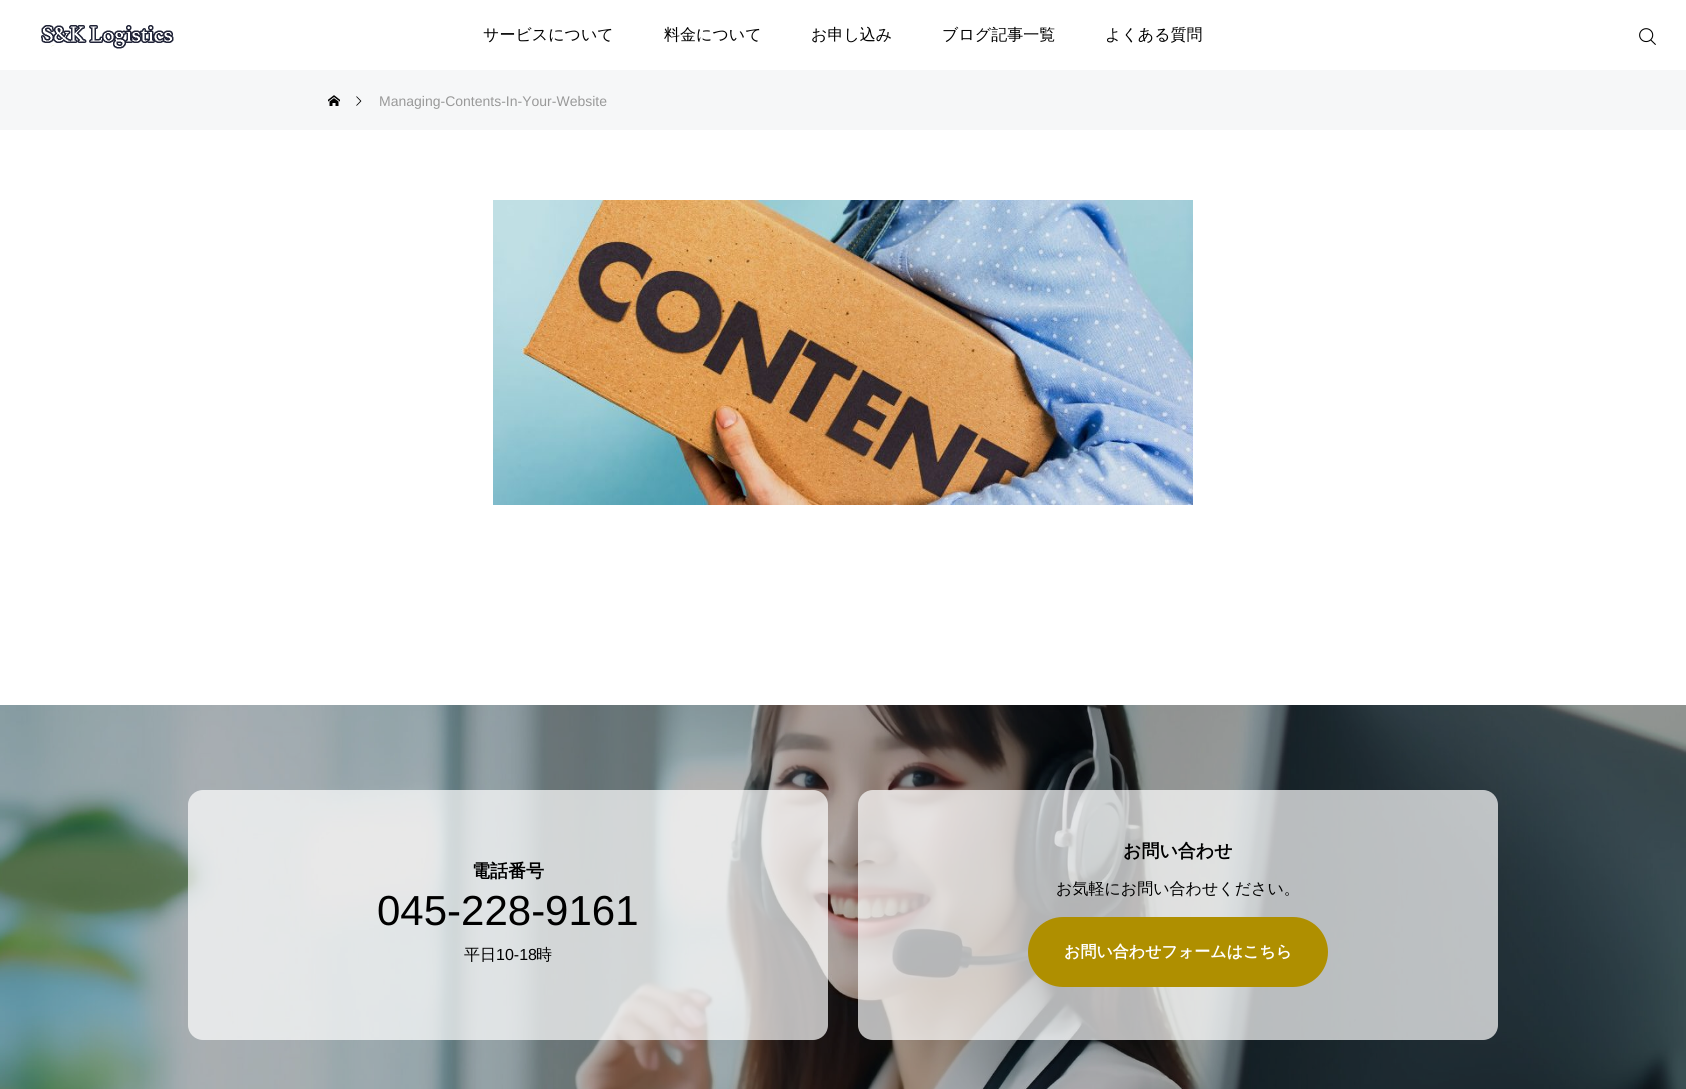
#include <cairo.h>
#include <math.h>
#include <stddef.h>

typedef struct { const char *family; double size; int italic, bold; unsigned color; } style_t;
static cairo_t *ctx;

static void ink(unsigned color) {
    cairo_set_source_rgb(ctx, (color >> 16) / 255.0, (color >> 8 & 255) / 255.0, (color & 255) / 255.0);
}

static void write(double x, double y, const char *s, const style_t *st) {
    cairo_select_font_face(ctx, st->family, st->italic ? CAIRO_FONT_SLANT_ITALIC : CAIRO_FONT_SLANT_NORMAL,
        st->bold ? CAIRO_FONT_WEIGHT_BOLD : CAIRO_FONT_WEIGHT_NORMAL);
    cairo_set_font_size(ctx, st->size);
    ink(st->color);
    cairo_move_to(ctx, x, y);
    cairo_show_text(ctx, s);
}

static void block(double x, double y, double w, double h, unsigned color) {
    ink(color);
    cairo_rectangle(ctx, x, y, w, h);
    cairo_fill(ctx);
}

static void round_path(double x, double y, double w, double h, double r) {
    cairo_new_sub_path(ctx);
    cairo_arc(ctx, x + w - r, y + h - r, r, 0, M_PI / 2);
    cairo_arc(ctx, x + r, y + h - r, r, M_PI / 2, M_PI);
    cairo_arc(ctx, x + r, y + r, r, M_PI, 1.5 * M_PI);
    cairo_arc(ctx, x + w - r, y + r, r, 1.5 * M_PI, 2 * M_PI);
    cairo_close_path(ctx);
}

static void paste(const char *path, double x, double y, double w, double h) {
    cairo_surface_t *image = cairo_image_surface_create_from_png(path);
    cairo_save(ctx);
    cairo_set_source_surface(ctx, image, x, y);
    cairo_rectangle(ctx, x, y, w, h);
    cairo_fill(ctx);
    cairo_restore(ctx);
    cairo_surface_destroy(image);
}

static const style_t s1 = {"WenQuanYi Zen Hei Medium", 16, 0, 0, 0x000000};
static const style_t s2 = {"Liberation Sans", 14, 0, 0, 0x999999};
static const style_t s3 = {"WenQuanYi Zen Hei", 18, 0, 1, 0x000000};
static const style_t s4 = {"Liberation Sans", 42, 0, 0, 0x000000};
static const style_t s5 = {"Liberation Sans", 16, 0, 0, 0x000000};
static const style_t s6 = {"WenQuanYi Zen Hei", 16, 0, 1, 0xffffff};

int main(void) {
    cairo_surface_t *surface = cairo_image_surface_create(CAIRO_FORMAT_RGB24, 1686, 1089);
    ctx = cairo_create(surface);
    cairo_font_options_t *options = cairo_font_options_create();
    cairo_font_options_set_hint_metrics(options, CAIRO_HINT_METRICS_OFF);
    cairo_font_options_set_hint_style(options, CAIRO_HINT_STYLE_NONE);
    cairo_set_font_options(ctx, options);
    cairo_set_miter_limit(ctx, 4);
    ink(0xffffff);
    cairo_paint(ctx);
    paste("pic1.png", 41, 25, 133, 24);
    write(483, 40, "サービスについて", &s1);
    write(664, 40, "料金について", &s1);
    write(811, 40, "お申し込み", &s1);
    write(942, 40, "ブログ記事一覧", &s1);
    write(1105, 40, "よくある質問", &s1);
    paste("pic2.png", 1639, 28, 17, 17);
    block(0, 70, 1686, 60, 0xf6f7f8);
    paste("pic3.png", 328, 95, 12, 11);
    paste("pic4.png", 356, 96, 6, 10);
    write(379, 106, "Managing-Contents-In-Your-Website", &s2);
    paste("pic5.png", 493, 200, 700, 305);
    paste("pic6.png", 0, 705, 1686, 384);
    cairo_set_source_rgba(ctx, 1, 1, 1, 0.7);
    round_path(188, 790, 640, 250, 15);
    cairo_fill(ctx);
    write(472, 877, "電話番号", &s3);
    write(377, 925, "045-228-9161", &s4);
    write(464, 960, "平日", &s1);
    write(496, 960, "10-18", &s5);
    write(536, 960, "時", &s1);
    cairo_set_source_rgba(ctx, 1, 1, 1, 0.7);
    round_path(858, 790, 640, 250, 15);
    cairo_fill(ctx);
    write(1123, 857, "お問い合わせ", &s3);
    write(1056, 894, "お気軽にお問い合わせください。", &s1);
    ink(0xaf8f00);
    round_path(1028, 917, 300, 70, 35);
    cairo_fill(ctx);
    write(1064, 957, "お問い合わせフォームはこちら", &s6);
    cairo_surface_write_to_png(surface, "screenshot.png");
    cairo_font_options_destroy(options);
    cairo_destroy(ctx);
    cairo_surface_destroy(surface);
    return 0;
}
